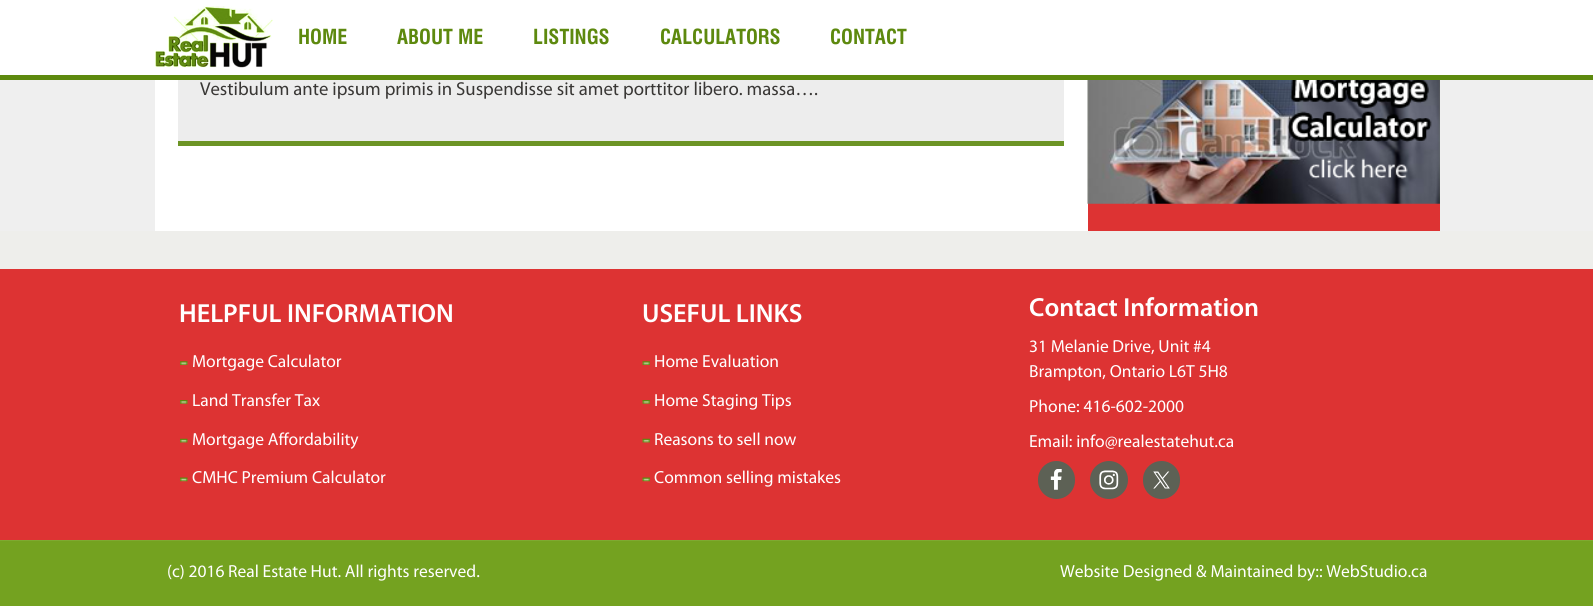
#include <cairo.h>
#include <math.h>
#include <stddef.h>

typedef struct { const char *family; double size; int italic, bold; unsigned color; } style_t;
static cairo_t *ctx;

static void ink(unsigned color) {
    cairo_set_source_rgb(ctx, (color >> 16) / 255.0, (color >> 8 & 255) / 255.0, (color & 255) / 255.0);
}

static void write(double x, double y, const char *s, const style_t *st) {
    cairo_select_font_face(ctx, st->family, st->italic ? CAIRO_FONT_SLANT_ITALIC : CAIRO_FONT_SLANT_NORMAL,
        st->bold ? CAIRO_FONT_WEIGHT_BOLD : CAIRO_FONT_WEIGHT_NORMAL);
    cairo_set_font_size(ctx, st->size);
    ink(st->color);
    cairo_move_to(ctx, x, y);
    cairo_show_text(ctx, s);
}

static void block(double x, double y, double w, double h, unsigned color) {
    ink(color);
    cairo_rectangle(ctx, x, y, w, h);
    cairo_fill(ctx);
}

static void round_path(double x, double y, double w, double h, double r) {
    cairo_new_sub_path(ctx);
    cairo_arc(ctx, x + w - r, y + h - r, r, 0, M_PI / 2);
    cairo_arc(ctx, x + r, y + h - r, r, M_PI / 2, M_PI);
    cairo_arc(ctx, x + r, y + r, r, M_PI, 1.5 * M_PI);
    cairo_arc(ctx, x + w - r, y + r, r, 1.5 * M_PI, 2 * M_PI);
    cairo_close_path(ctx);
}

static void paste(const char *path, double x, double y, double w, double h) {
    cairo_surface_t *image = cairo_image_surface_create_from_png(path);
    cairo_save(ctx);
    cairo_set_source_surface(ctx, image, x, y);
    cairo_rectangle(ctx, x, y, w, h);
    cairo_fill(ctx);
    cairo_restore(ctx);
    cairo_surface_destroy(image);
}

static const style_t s1 = {"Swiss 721", 20.25, 0, 1, 0x5d890e};
static const style_t s2 = {"Myriad", 18.75, 0, 0, 0x393735};
static const style_t s3 = {"Myriad SemiBold", 26.25, 0, 0, 0xffffff};
static const style_t s4 = {"Myriad", 17.5, 0, 0, 0xffffff};

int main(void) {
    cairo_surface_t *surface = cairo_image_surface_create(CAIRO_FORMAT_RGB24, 1593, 606);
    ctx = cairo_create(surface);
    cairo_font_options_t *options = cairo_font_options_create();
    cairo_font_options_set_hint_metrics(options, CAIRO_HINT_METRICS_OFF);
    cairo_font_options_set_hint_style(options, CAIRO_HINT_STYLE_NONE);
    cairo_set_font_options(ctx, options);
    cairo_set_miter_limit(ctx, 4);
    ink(0xefefef);
    cairo_paint(ctx);
    block(0, 0, 1593, 75, 0xffffff);
    block(0, 75, 1593, 5, 0x5d890e);
    paste("pic1.png", 155, 6, 118, 62);
    write(298, 44, "HOME", &s1);
    write(397, 44, "ABOUT ME", &s1);
    write(533, 44, "LISTINGS", &s1);
    write(660, 44, "CALCULATORS", &s1);
    write(830, 44, "CONTACT", &s1);
    block(155, 80, 933, 151, 0xffffff);
    block(178, 80, 886, 61, 0xededed);
    block(178, 141, 886, 5, 0x6c9425);
    write(200, 95, "Vestibulum ante ipsum primis in Suspendisse sit amet porttitor libero. massa….", &s2);
    block(1088, 203, 352, 28, 0xdd3333);
    paste("pic2.png", 1087, 80, 353, 124);
    block(0, 231, 1593, 38, 0xeeeeeb);
    block(0, 269, 1593, 271, 0xdd3333);
    write(179, 322, "HELPFUL INFORMATION", &s3);
    paste("pic3.png", 180, 361, 8, 4);
    write(192, 367, "Mortgage Calculator", &s4);
    paste("pic4.png", 180, 400, 8, 4);
    write(192, 406, "Land Transfer Tax", &s4);
    paste("pic5.png", 180, 438, 8, 5);
    write(192, 445, "Mortgage Affordability", &s4);
    paste("pic6.png", 180, 477, 8, 5);
    write(192, 483, "CMHC Premium Calculator", &s4);
    write(642, 322, "USEFUL LINKS", &s3);
    paste("pic7.png", 642, 361, 8, 4);
    write(654, 367, "Home Evaluation", &s4);
    paste("pic8.png", 642, 400, 8, 4);
    write(654, 406, "Home Staging Tips", &s4);
    paste("pic9.png", 642, 438, 8, 5);
    write(654, 445, "Reasons to sell now", &s4);
    paste("pic10.png", 642, 477, 8, 5);
    write(654, 483, "Common selling mistakes", &s4);
    write(1029, 316, "Contact Information", &s3);
    write(1029, 352, "31 Melanie Drive, Unit #4", &s4);
    write(1029, 377, "Brampton, Ontario L6T 5H8", &s4);
    write(1029, 412, "Phone: 416-602-2000", &s4);
    write(1029, 447, "Email: info@realestatehut.ca", &s4);
    ink(0x5d6155);
    round_path(1038, 461, 37, 38, 18.5);
    cairo_fill(ctx);
    paste("pic11.png", 1050, 469, 12, 21);
    cairo_arc(ctx, 1109, 480, 19, 0, 2 * M_PI);
    cairo_fill(ctx);
    paste("pic12.png", 1099, 470, 20, 20);
    round_path(1143, 461, 37, 38, 18.5);
    cairo_fill(ctx);
    paste("pic13.png", 1153, 471, 17, 18);
    block(0, 541, 1593, 65, 0x74a220);
    block(0, 540, 1593, 1, 0x7fa931);
    write(167, 577, "(c) 2016 Real Estate Hut. All rights reserved.", &s4);
    write(1060, 577, "Website Designed & Maintained by:: WebStudio.ca", &s4);
    cairo_surface_write_to_png(surface, "screenshot.png");
    cairo_font_options_destroy(options);
    cairo_destroy(ctx);
    cairo_surface_destroy(surface);
    return 0;
}
